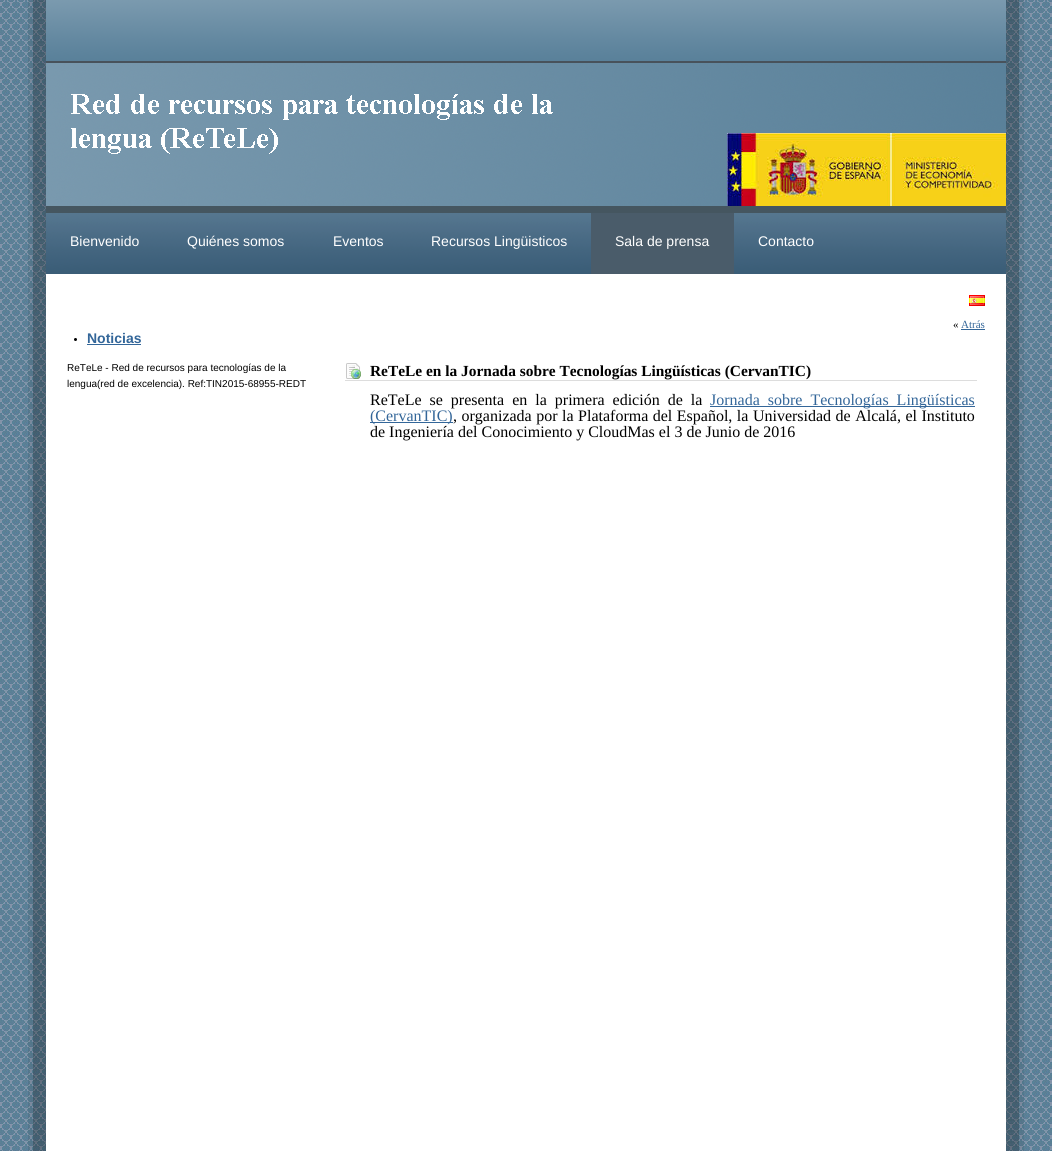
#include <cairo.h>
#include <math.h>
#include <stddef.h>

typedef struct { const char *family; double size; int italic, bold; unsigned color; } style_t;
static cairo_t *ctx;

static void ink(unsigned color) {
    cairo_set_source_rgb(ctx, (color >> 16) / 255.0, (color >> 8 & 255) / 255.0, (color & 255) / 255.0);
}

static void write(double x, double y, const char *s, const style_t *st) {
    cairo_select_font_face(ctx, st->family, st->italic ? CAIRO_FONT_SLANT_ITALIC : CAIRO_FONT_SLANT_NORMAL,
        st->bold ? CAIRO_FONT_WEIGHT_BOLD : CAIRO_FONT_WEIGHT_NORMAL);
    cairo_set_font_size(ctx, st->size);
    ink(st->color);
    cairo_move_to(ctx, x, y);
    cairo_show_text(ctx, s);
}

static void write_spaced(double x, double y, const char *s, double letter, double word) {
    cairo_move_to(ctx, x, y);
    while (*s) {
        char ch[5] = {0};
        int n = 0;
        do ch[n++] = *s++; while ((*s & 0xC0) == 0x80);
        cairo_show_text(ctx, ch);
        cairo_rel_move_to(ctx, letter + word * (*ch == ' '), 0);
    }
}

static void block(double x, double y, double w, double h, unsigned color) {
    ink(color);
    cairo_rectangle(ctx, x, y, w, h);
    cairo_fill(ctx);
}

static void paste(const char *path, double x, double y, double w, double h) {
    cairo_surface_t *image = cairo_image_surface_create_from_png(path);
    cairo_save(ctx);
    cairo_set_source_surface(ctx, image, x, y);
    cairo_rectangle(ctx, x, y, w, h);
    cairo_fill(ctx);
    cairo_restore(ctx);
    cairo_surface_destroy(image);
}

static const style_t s1 = {"Liberation Sans", 14, 0, 0, 0xffffff};
static const style_t s2 = {"Liberation Sans", 14, 0, 1, 0x336699};
static const style_t s3 = {"Liberation Sans", 10, 0, 0, 0x000000};
static const style_t s4 = {"Liberation Serif", 11, 0, 0, 0x000000};
static const style_t s5 = {"Liberation Serif", 11, 0, 0, 0x336699};
static const style_t s6 = {"Liberation Serif", 15.4, 0, 1, 0x000000};
static const style_t s7 = {"Liberation Serif", 16, 0, 0, 0x336699};
static const style_t s8 = {"Liberation Serif", 16, 0, 0, 0x000000};

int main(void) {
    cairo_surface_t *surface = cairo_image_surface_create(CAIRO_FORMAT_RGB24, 1052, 1151);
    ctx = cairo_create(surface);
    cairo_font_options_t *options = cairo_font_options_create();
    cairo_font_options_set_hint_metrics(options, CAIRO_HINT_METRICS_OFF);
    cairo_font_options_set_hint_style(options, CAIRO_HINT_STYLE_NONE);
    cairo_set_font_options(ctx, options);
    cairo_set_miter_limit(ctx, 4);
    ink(0xffffff);
    cairo_paint(ctx);
    paste("pic1.png", 0, 0, 1052, 1151);
    paste("pic2.png", 46, 0, 960, 61);
    paste("pic3.png", 46, 63, 960, 143);
    block(46, 61, 960, 2, 0x48525b);
    paste("pic4.png", 71, 94, 482, 60);
    paste("pic5.png", 46, 213, 960, 61);
    block(46, 206, 960, 7, 0x455660);
    write(70, 246, "Bienvenido", &s1);
    write(187, 246, "Quiénes somos", &s1);
    write(333, 246, "Eventos", &s1);
    write(431, 246, "Recursos Lingüisticos", &s1);
    block(591, 213, 143, 61, 0x4a5c6a);
    write(615, 246, "Sala de prensa", &s1);
    write(758, 246, "Contacto", &s1);
    paste("pic6.png", 969, 295, 16, 11);
    ink(0x000000);
    cairo_arc(ctx, 75.5, 339.5, 1.5, 0, 2 * M_PI);
    cairo_fill(ctx);
    write(87, 343, "Noticias", &s2);
    block(87, 344, 54, 1, 0x336699);
    write(67, 371, "ReTeLe - Red de recursos para tecnologías de la", &s3);
    write(67, 387, "lengua(red de excelencia). Ref:TIN2015-68955-REDT", &s3);
    write(953, 328, "«", &s4);
    write(961, 328, "Atrás", &s5);
    block(961, 329, 24, 1, 0x336699);
    paste("pic7.png", 346, 363, 15, 16);
    block(345, 380, 632, 1, 0xdddddd);
    write(370, 376, "ReTeLe en la Jornada sobre Tecnologías Lingüísticas (CervanTIC)", &s6);
    cairo_select_font_face(ctx, "Liberation Serif", CAIRO_FONT_SLANT_NORMAL, CAIRO_FONT_WEIGHT_NORMAL);
    cairo_set_font_size(ctx, 16);
    write_spaced(370, 405, "ReTeLe se presenta en la primera edición de la", 0, 4);
    block(710, 406, 265, 1, 0x336699);
    write_spaced(710, 405, "Jornada sobre Tecnologías Lingüísticas", 0, 4);
    block(370, 422, 83, 1, 0x336699);
    write(370, 421, "(CervanTIC)", &s7);
    ink(0x000000);
    write_spaced(453, 421, ", organizada por la Plataforma del Español, la Universidad de Alcalá, el Instituto", 0, 0.5);
    write(370, 437, "de Ingeniería del Conocimiento y CloudMas el 3 de Junio de 2016", &s8);
    cairo_surface_write_to_png(surface, "screenshot.png");
    cairo_font_options_destroy(options);
    cairo_destroy(ctx);
    cairo_surface_destroy(surface);
    return 0;
}
